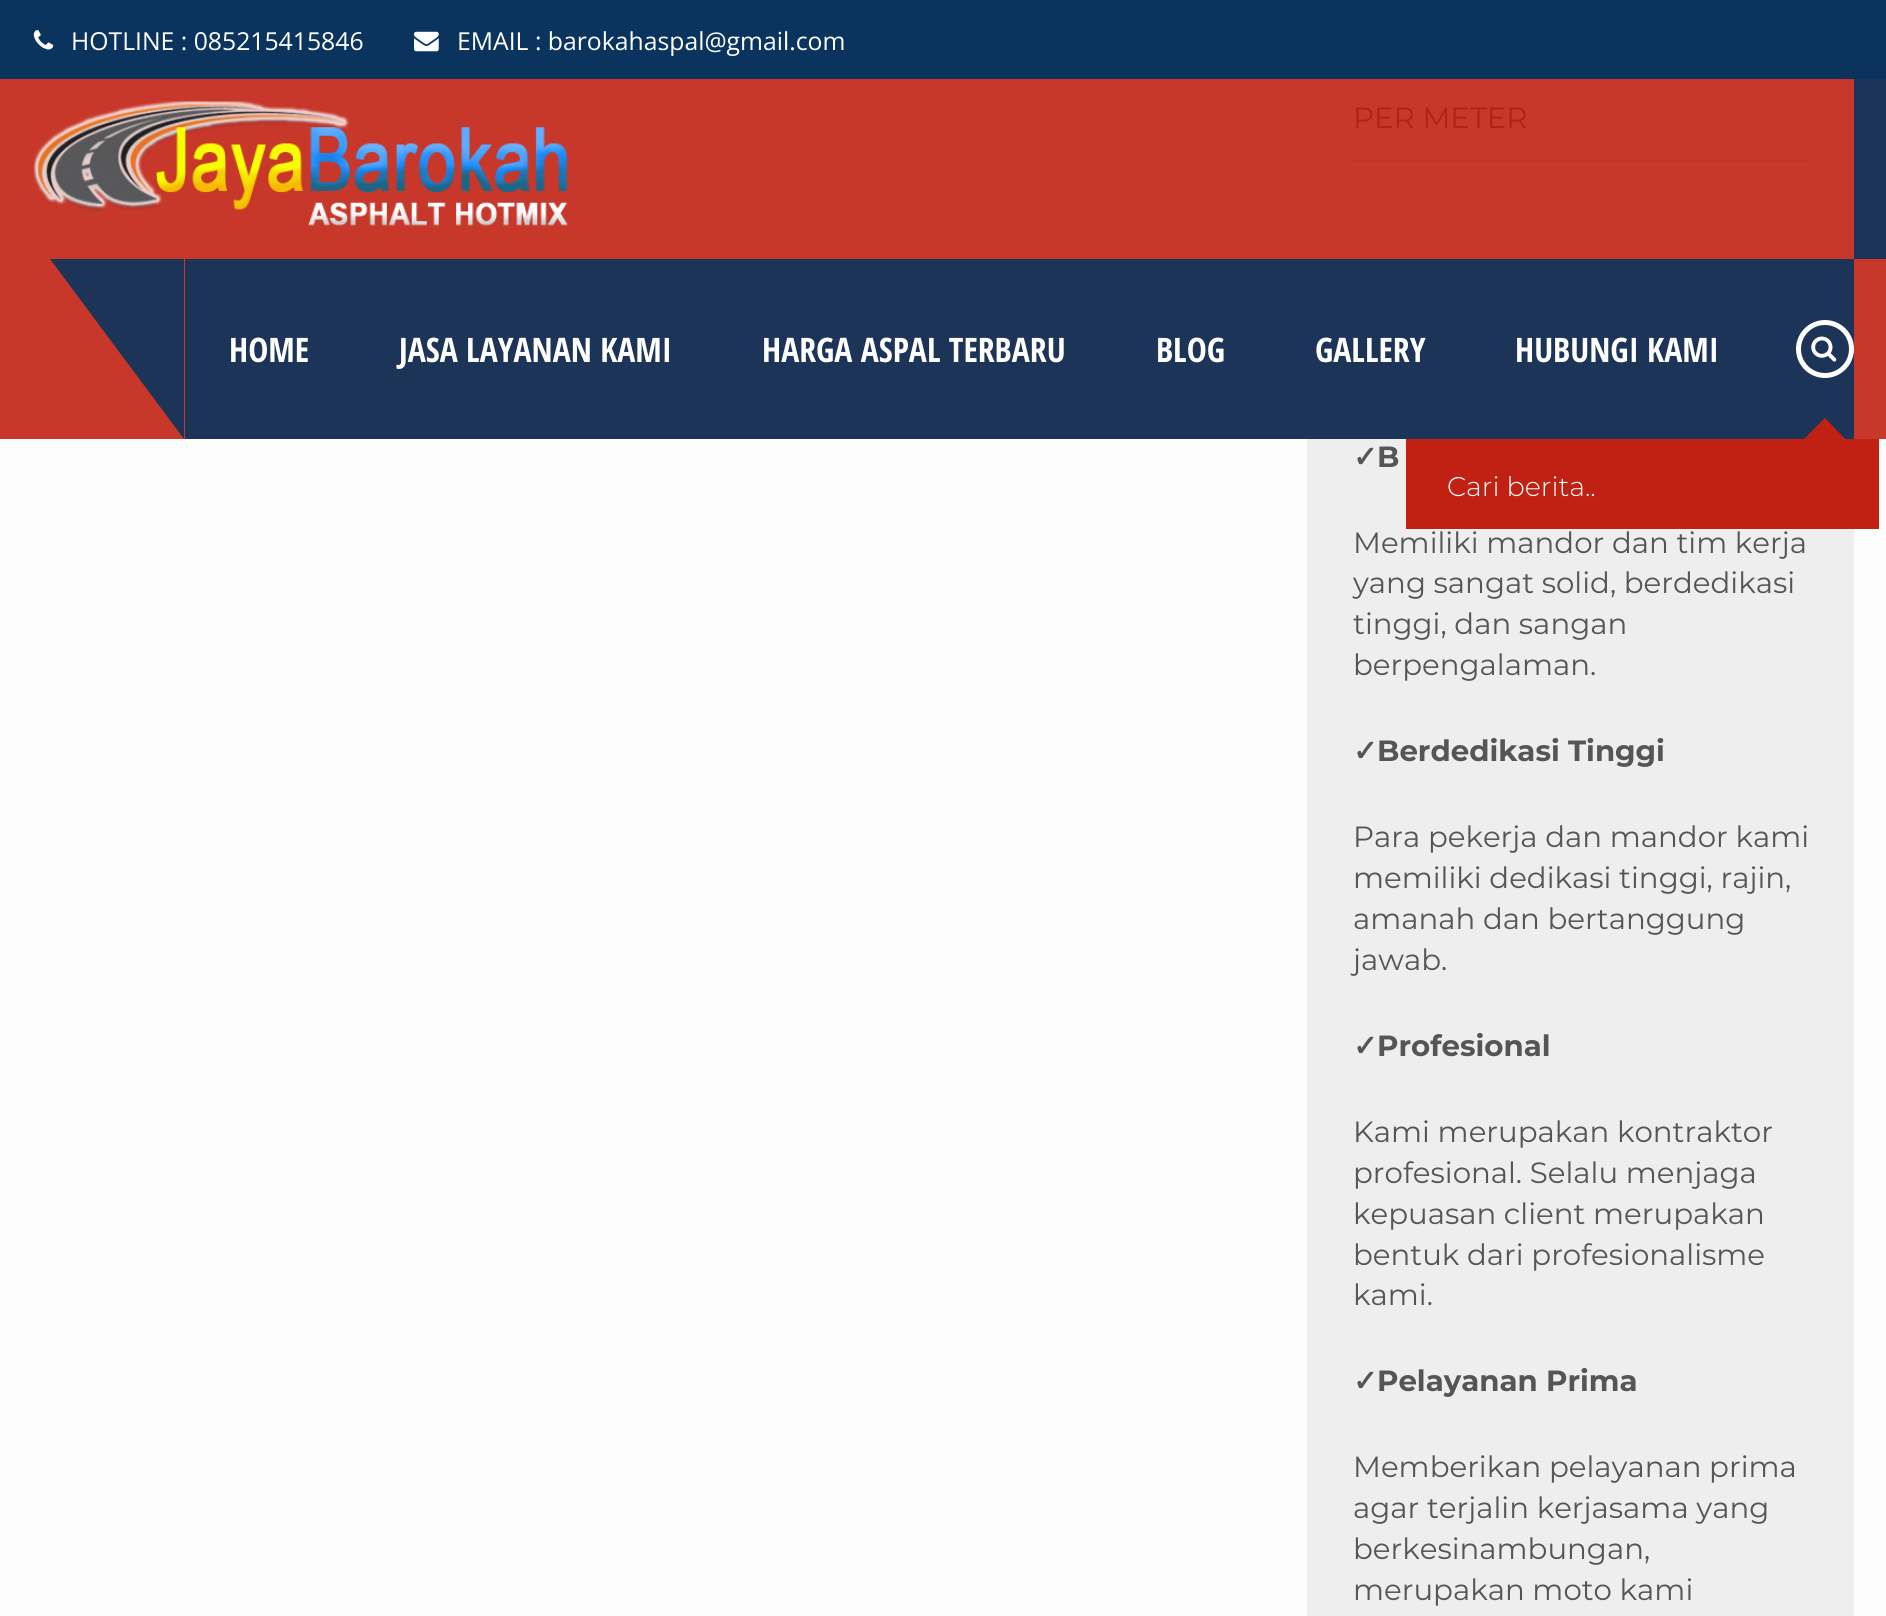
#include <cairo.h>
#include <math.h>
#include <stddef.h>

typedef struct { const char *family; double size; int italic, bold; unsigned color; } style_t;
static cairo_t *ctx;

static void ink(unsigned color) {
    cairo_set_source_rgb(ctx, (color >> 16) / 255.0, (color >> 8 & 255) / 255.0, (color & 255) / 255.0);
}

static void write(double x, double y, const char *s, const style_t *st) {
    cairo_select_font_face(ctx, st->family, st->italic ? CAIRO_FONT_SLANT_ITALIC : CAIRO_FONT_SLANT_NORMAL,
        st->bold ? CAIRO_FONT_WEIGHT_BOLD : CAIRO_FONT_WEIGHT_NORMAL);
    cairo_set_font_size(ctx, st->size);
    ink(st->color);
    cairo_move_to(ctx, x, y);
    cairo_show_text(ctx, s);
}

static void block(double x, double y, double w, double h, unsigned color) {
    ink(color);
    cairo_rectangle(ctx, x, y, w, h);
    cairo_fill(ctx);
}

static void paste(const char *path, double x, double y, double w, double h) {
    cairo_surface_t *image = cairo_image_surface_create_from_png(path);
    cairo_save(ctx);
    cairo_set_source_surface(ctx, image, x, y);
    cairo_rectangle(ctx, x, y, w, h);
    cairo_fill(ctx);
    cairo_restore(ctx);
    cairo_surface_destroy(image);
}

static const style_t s1 = {"Open Sans", 24.75, 0, 0, 0xffffff};
static const style_t s2 = {"Open Sans Condensed", 33.75, 0, 1, 0xffffff};
static const style_t s3 = {"Montserrat Light", 27, 0, 0, 0xffffff};
static const style_t s4 = {"Montserrat", 29.25, 0, 0, 0xb12115};
static const style_t s5 = {"DejaVu Sans", 29.25, 0, 1, 0x555555};
static const style_t s6 = {"Montserrat", 29.25, 0, 1, 0x555555};
static const style_t s7 = {"Montserrat", 29.25, 0, 0, 0x555555};

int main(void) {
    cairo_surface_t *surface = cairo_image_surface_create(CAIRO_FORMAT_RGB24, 1886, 1616);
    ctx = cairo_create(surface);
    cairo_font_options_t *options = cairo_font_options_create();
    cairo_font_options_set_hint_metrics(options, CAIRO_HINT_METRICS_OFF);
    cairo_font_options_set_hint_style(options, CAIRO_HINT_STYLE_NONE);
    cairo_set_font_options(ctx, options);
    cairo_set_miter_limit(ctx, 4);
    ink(0xfdfdfd);
    cairo_paint(ctx);
    block(0, 0, 1886, 79, 0x0a345e);
    paste("pic1.png", 33, 30, 21, 20);
    write(71, 50, "HOTLINE : 085215415846", &s1);
    paste("pic2.png", 414, 31, 25, 21);
    write(457, 50, "EMAIL : barokahaspal@gmail.com", &s1);
    block(0, 79, 1886, 360, 0xc7372a);
    paste("pic3.png", 33, 101, 538, 125);
    block(1854, 79, 32, 180, 0x1d3459);
    cairo_new_path(ctx);
    cairo_move_to(ctx, 50, 259);
    cairo_line_to(ctx, 184, 259);
    cairo_line_to(ctx, 184, 439);
    cairo_close_path(ctx);
    cairo_fill(ctx);
    block(185, 259, 1669, 180, 0x1d3459);
    write(229, 362, "HOME", &s2);
    write(399, 362, "JASA LAYANAN KAMI", &s2);
    write(762, 362, "HARGA ASPAL TERBARU", &s2);
    write(1156, 362, "BLOG", &s2);
    write(1315, 362, "GALLERY", &s2);
    write(1515, 362, "HUBUNGI KAMI", &s2);
    cairo_new_path(ctx);
    cairo_arc(ctx, 1825, 349, 26.5, 0, 2 * M_PI);
    cairo_set_line_width(ctx, 5);
    cairo_stroke(ctx);
    paste("pic4.png", 1811, 336, 26, 26);
    block(1307, 439, 547, 1177, 0xeeeeee);
    block(1406, 439, 473, 90, 0xc12113);
    cairo_new_path(ctx);
    cairo_move_to(ctx, 1847, 441);
    cairo_line_to(ctx, 1802, 441);
    cairo_line_to(ctx, 1825, 418);
    cairo_close_path(ctx);
    cairo_fill(ctx);
    write(1447, 496, "Cari berita..", &s3);
    block(1352, 160, 457, 2, 0xc43427);
    write(1353, 128, "PER METER", &s4);
    write(1353, 467, "✓", &s5);
    write(1377, 467, "B", &s6);
    write(1353, 553, "Memiliki mandor dan tim kerja", &s7);
    write(1353, 593, "yang sangat solid, berdedikasi", &s7);
    write(1353, 634, "tinggi, dan sangan", &s7);
    write(1353, 675, "berpengalaman.", &s7);
    write(1353, 761, "✓", &s5);
    write(1377, 761, "Berdedikasi Tinggi", &s6);
    write(1353, 847, "Para pekerja dan mandor kami", &s7);
    write(1353, 888, "memiliki dedikasi tinggi, rajin,", &s7);
    write(1353, 929, "amanah dan bertanggung", &s7);
    write(1353, 970, "jawab.", &s7);
    write(1353, 1056, "✓", &s5);
    write(1377, 1056, "Profesional", &s6);
    write(1353, 1142, "Kami merupakan kontraktor", &s7);
    write(1353, 1183, "profesional. Selalu menjaga", &s7);
    write(1353, 1224, "kepuasan client merupakan", &s7);
    write(1353, 1265, "bentuk dari profesionalisme", &s7);
    write(1353, 1305, "kami.", &s7);
    write(1353, 1391, "✓", &s5);
    write(1377, 1391, "Pelayanan Prima", &s6);
    write(1353, 1477, "Memberikan pelayanan prima", &s7);
    write(1353, 1518, "agar terjalin kerjasama yang", &s7);
    write(1353, 1559, "berkesinambungan,", &s7);
    write(1353, 1600, "merupakan moto kami", &s7);
    cairo_surface_write_to_png(surface, "screenshot.png");
    cairo_font_options_destroy(options);
    cairo_destroy(ctx);
    cairo_surface_destroy(surface);
    return 0;
}
